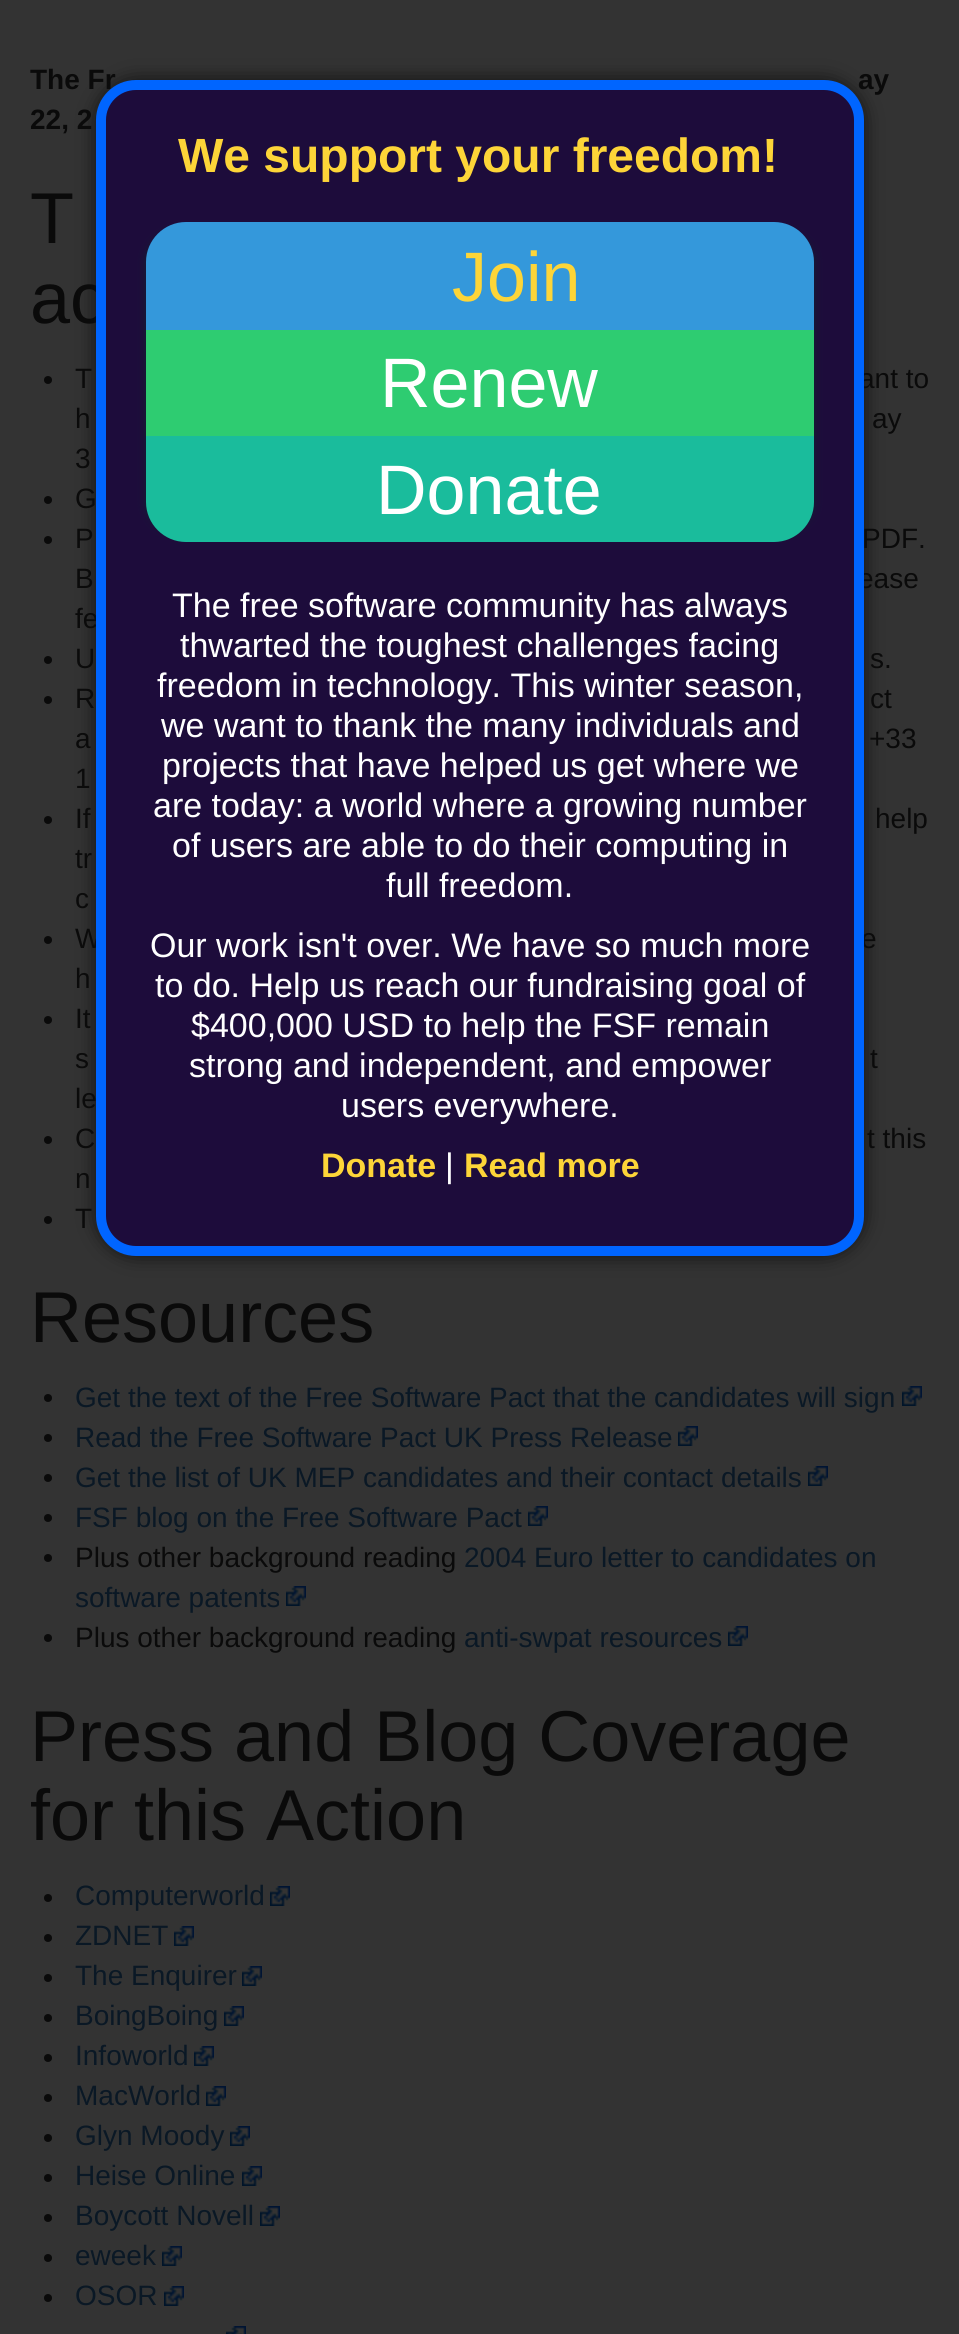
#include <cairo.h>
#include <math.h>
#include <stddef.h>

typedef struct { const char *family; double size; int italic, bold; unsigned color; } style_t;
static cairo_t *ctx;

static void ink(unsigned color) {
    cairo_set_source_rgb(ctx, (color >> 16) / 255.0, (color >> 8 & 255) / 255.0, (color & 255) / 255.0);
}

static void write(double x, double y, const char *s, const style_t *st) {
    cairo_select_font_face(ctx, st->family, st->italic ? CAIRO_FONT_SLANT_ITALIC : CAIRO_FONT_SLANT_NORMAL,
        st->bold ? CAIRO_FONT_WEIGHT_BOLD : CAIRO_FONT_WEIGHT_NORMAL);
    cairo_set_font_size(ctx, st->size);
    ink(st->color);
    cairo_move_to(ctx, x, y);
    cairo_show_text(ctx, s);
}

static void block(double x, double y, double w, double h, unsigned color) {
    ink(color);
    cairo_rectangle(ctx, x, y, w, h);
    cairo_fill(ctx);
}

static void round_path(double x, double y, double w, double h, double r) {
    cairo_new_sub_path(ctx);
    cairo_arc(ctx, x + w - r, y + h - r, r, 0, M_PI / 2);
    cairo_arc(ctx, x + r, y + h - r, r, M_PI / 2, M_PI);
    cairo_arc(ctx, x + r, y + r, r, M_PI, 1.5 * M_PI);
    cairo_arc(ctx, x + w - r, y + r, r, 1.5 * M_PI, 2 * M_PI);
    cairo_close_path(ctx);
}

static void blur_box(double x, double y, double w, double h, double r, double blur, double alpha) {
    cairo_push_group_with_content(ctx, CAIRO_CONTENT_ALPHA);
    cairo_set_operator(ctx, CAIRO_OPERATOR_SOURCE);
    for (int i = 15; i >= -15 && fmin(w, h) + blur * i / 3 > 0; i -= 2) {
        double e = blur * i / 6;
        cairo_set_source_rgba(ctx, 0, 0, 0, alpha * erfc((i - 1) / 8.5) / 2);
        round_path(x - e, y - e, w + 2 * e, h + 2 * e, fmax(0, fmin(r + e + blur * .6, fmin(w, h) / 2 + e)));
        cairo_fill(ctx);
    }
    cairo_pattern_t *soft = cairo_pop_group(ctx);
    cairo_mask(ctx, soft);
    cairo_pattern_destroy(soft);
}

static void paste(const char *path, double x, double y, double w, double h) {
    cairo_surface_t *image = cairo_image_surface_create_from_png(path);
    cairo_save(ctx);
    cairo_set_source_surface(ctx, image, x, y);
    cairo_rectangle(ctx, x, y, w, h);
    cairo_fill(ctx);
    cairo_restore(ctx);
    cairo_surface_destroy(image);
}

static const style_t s1 = {"Liberation Sans", 28, 0, 1, 0x0a0a0a};
static const style_t s2 = {"Liberation Sans", 72, 0, 0, 0x0a0a0a};
static const style_t s3 = {"Liberation Sans", 28, 0, 0, 0x0a0a0a};
static const style_t s4 = {"Liberation Sans", 28, 0, 0, 0x0a1825};
static const style_t s5 = {"Liberation Sans", 48, 0, 1, 0xfdd538};
static const style_t s6 = {"Liberation Sans", 70, 0, 0, 0xfdd538};
static const style_t s7 = {"Liberation Sans", 70, 0, 0, 0xffffff};
static const style_t s8 = {"Liberation Sans", 34, 0, 0, 0xffffff};
static const style_t s9 = {"Liberation Sans", 34, 0, 1, 0xfdd538};

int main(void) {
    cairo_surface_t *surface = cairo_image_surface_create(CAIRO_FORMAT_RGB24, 959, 2334);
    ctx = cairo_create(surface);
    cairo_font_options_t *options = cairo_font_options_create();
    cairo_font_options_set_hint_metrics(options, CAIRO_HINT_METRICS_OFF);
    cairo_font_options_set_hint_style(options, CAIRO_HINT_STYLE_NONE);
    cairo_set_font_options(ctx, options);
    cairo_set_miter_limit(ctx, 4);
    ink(0x333333);
    cairo_paint(ctx);
    write(30, 89, "The Fr", &s1);
    write(858, 89, "ay", &s1);
    write(30, 129, "22, 2", &s1);
    write(30, 243, "T", &s2);
    write(30, 323, "ac", &s2);
    cairo_new_path(ctx);
    cairo_arc(ctx, 48, 380, 4, 0, 2 * M_PI);
    cairo_fill(ctx);
    write(75, 388, "T", &s3);
    write(859, 388, "ant to", &s3);
    write(75, 428, "h", &s3);
    write(872, 428, "ay", &s3);
    write(75, 468, "3", &s3);
    cairo_new_path(ctx);
    cairo_arc(ctx, 48, 500, 4, 0, 2 * M_PI);
    cairo_fill(ctx);
    write(75, 508, "G", &s3);
    cairo_new_path(ctx);
    cairo_arc(ctx, 48, 540, 4, 0, 2 * M_PI);
    cairo_fill(ctx);
    write(75, 548, "P", &s3);
    write(862, 548, "PDF.", &s3);
    write(75, 588, "B", &s3);
    write(858, 588, "ease", &s3);
    write(75, 628, "fe", &s3);
    cairo_new_path(ctx);
    cairo_arc(ctx, 48, 660, 4, 0, 2 * M_PI);
    cairo_fill(ctx);
    write(75, 668, "U", &s3);
    write(870, 668, "s.", &s3);
    cairo_new_path(ctx);
    cairo_arc(ctx, 48, 700, 4, 0, 2 * M_PI);
    cairo_fill(ctx);
    write(75, 708, "R", &s3);
    write(870, 708, "ct", &s3);
    write(75, 748, "a", &s3);
    write(869, 748, "+33", &s3);
    write(75, 788, "1", &s3);
    cairo_new_path(ctx);
    cairo_arc(ctx, 48, 820, 4, 0, 2 * M_PI);
    cairo_fill(ctx);
    write(75, 828, "If", &s3);
    write(875, 828, "help", &s3);
    write(75, 868, "tr", &s3);
    write(75, 908, "c", &s3);
    cairo_new_path(ctx);
    cairo_arc(ctx, 48, 940, 4, 0, 2 * M_PI);
    cairo_fill(ctx);
    write(75, 948, "W", &s3);
    write(861, 948, "e", &s3);
    write(75, 988, "h", &s3);
    cairo_new_path(ctx);
    cairo_arc(ctx, 48, 1020, 4, 0, 2 * M_PI);
    cairo_fill(ctx);
    write(75, 1028, "It", &s3);
    write(75, 1068, "s", &s3);
    write(870, 1068, "t", &s3);
    write(75, 1108, "le", &s3);
    cairo_new_path(ctx);
    cairo_arc(ctx, 48, 1140, 4, 0, 2 * M_PI);
    cairo_fill(ctx);
    write(75, 1148, "C", &s3);
    write(867, 1148, "t this", &s3);
    write(75, 1188, "n", &s3);
    cairo_new_path(ctx);
    cairo_arc(ctx, 48, 1220, 4, 0, 2 * M_PI);
    cairo_fill(ctx);
    write(75, 1228, "T", &s3);
    write(30, 1342, "Resources", &s2);
    cairo_new_path(ctx);
    cairo_arc(ctx, 48, 1398, 4, 0, 2 * M_PI);
    cairo_fill(ctx);
    write(75, 1407, "Get the text of the Free Software Pact that the candidates will sign", &s4);
    paste("pic1.png", 902, 1386, 20, 20);
    ink(0x0a0a0a);
    cairo_arc(ctx, 48, 1438, 4, 0, 2 * M_PI);
    cairo_fill(ctx);
    write(75, 1447, "Read the Free Software Pact UK Press Release", &s4);
    paste("pic1.png", 678, 1426, 20, 20);
    ink(0x0a0a0a);
    cairo_arc(ctx, 48, 1478, 4, 0, 2 * M_PI);
    cairo_fill(ctx);
    write(75, 1487, "Get the list of UK MEP candidates and their contact details", &s4);
    paste("pic1.png", 808, 1466, 20, 20);
    ink(0x0a0a0a);
    cairo_arc(ctx, 48, 1518, 4, 0, 2 * M_PI);
    cairo_fill(ctx);
    write(75, 1527, "FSF blog on the Free Software Pact", &s4);
    paste("pic1.png", 528, 1506, 20, 20);
    ink(0x0a0a0a);
    cairo_arc(ctx, 48, 1558, 4, 0, 2 * M_PI);
    cairo_fill(ctx);
    write(75, 1567, "Plus other background reading", &s3);
    write(464, 1567, "2004 Euro letter to candidates on", &s4);
    write(75, 1607, "software patents", &s4);
    paste("pic1.png", 286, 1586, 20, 20);
    ink(0x0a0a0a);
    cairo_arc(ctx, 48, 1638, 4, 0, 2 * M_PI);
    cairo_fill(ctx);
    write(75, 1647, "Plus other background reading", &s3);
    write(464, 1647, "anti-swpat resources", &s4);
    paste("pic1.png", 728, 1626, 20, 20);
    write(30, 1761, "Press and Blog Coverage", &s2);
    write(30, 1840, "for this Action", &s2);
    cairo_new_path(ctx);
    cairo_arc(ctx, 48, 1898, 4, 0, 2 * M_PI);
    cairo_fill(ctx);
    write(75, 1905, "Computerworld", &s4);
    paste("pic1.png", 270, 1886, 20, 20);
    ink(0x0a0a0a);
    cairo_arc(ctx, 48, 1938, 4, 0, 2 * M_PI);
    cairo_fill(ctx);
    write(75, 1945, "ZDNET", &s4);
    paste("pic1.png", 174, 1926, 20, 20);
    ink(0x0a0a0a);
    cairo_arc(ctx, 48, 1978, 4, 0, 2 * M_PI);
    cairo_fill(ctx);
    write(75, 1985, "The Enquirer", &s4);
    paste("pic1.png", 242, 1966, 20, 20);
    ink(0x0a0a0a);
    cairo_arc(ctx, 48, 2018, 4, 0, 2 * M_PI);
    cairo_fill(ctx);
    write(75, 2025, "BoingBoing", &s4);
    paste("pic1.png", 224, 2006, 20, 20);
    ink(0x0a0a0a);
    cairo_arc(ctx, 48, 2058, 4, 0, 2 * M_PI);
    cairo_fill(ctx);
    write(75, 2065, "Infoworld", &s4);
    paste("pic1.png", 194, 2046, 20, 20);
    ink(0x0a0a0a);
    cairo_arc(ctx, 48, 2098, 4, 0, 2 * M_PI);
    cairo_fill(ctx);
    write(75, 2105, "MacWorld", &s4);
    paste("pic1.png", 206, 2086, 20, 20);
    ink(0x0a0a0a);
    cairo_arc(ctx, 48, 2138, 4, 0, 2 * M_PI);
    cairo_fill(ctx);
    write(75, 2145, "Glyn Moody", &s4);
    paste("pic1.png", 230, 2126, 20, 20);
    ink(0x0a0a0a);
    cairo_arc(ctx, 48, 2178, 4, 0, 2 * M_PI);
    cairo_fill(ctx);
    write(75, 2185, "Heise Online", &s4);
    paste("pic1.png", 242, 2166, 20, 20);
    ink(0x0a0a0a);
    cairo_arc(ctx, 48, 2218, 4, 0, 2 * M_PI);
    cairo_fill(ctx);
    write(75, 2225, "Boycott Novell", &s4);
    paste("pic1.png", 260, 2206, 20, 20);
    ink(0x0a0a0a);
    cairo_arc(ctx, 48, 2258, 4, 0, 2 * M_PI);
    cairo_fill(ctx);
    write(75, 2265, "eweek", &s4);
    paste("pic1.png", 162, 2246, 20, 20);
    ink(0x0a0a0a);
    cairo_arc(ctx, 48, 2298, 4, 0, 2 * M_PI);
    cairo_fill(ctx);
    write(75, 2305, "OSOR", &s4);
    paste("pic1.png", 164, 2286, 20, 20);
    paste("pic2.png", 226, 2326, 20, 8);
    ink(0x111111);
    blur_box(96, 80, 768, 1176, 40, 10, 1);
    ink(0x1d0c3b);
    round_path(101, 85, 758, 1166, 35);
    cairo_fill_preserve(ctx);
    ink(0x0065ff);
    cairo_set_line_width(ctx, 10);
    cairo_stroke(ctx);
    write(178, 172, "We support your freedom!", &s5);
    ink(0x0c2b2b);
    blur_box(148, 234, 644, 296, 28, 5, 1);
    blur_box(168, 234, 644, 296, 28, 5, 1);
    ink(0x3498db);
    cairo_new_path(ctx);
    cairo_move_to(ctx, 186, 222);
    cairo_line_to(ctx, 774, 222);
    cairo_curve_to(ctx, 796, 222, 814, 240, 814, 262);
    cairo_line_to(ctx, 814, 330);
    cairo_line_to(ctx, 146, 330);
    cairo_line_to(ctx, 146, 262);
    cairo_curve_to(ctx, 146, 240, 164, 222, 186, 222);
    cairo_close_path(ctx);
    cairo_fill(ctx);
    write(452, 301, "Join", &s6);
    block(146, 330, 668, 106, 0x2ecc71);
    write(380, 407, "Renew", &s7);
    ink(0x1abc9c);
    cairo_new_path(ctx);
    cairo_move_to(ctx, 146, 436);
    cairo_line_to(ctx, 814, 436);
    cairo_line_to(ctx, 814, 502);
    cairo_curve_to(ctx, 814, 524, 796, 542, 774, 542);
    cairo_line_to(ctx, 186, 542);
    cairo_curve_to(ctx, 164, 542, 146, 524, 146, 502);
    cairo_close_path(ctx);
    cairo_fill(ctx);
    write(376, 514, "Donate", &s7);
    write(172, 617, "The free software community has always", &s8);
    write(180, 657, "thwarted the toughest challenges facing", &s8);
    write(157, 697, "freedom in technology. This winter season,", &s8);
    write(161, 737, "we want to thank the many individuals and", &s8);
    write(162, 777, "projects that have helped us get where we", &s8);
    write(153, 817, "are today: a world where a growing number", &s8);
    write(172, 857, "of users are able to do their computing in", &s8);
    write(386, 897, "full freedom.", &s8);
    write(150, 957, "Our work isn't over. We have so much more", &s8);
    write(155, 997, "to do. Help us reach our fundraising goal of", &s8);
    write(191, 1037, "$400,000 USD to help the FSF remain", &s8);
    write(189, 1077, "strong and independent, and empower", &s8);
    write(341, 1117, "users everywhere.", &s8);
    write(321, 1177, "Donate", &s9);
    write(445, 1177, "|", &s8);
    write(464, 1177, "Read more", &s9);
    cairo_surface_write_to_png(surface, "screenshot.png");
    cairo_font_options_destroy(options);
    cairo_destroy(ctx);
    cairo_surface_destroy(surface);
    return 0;
}
